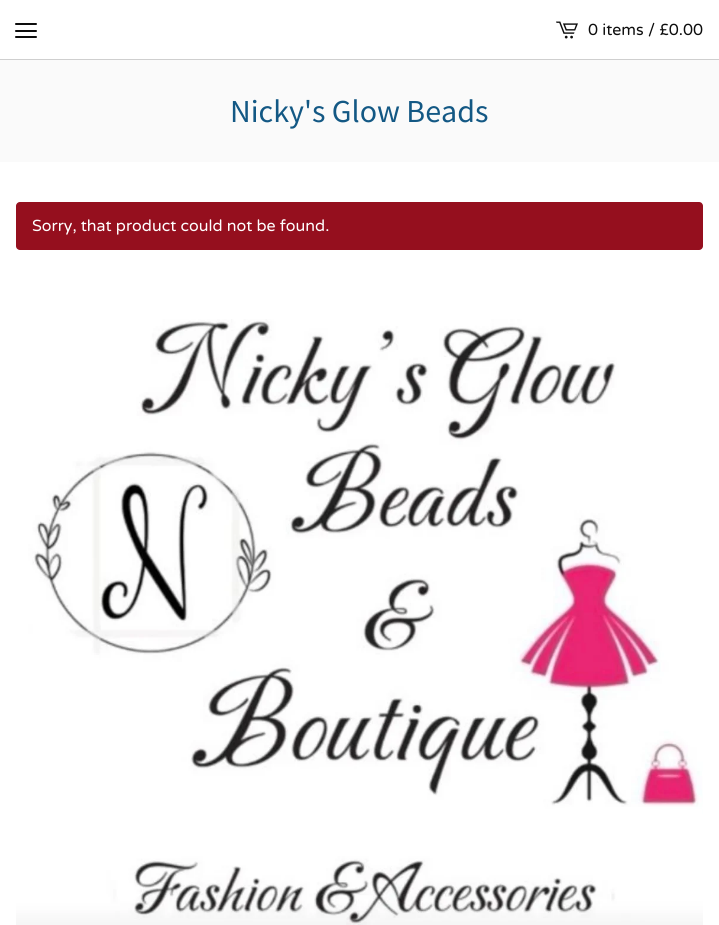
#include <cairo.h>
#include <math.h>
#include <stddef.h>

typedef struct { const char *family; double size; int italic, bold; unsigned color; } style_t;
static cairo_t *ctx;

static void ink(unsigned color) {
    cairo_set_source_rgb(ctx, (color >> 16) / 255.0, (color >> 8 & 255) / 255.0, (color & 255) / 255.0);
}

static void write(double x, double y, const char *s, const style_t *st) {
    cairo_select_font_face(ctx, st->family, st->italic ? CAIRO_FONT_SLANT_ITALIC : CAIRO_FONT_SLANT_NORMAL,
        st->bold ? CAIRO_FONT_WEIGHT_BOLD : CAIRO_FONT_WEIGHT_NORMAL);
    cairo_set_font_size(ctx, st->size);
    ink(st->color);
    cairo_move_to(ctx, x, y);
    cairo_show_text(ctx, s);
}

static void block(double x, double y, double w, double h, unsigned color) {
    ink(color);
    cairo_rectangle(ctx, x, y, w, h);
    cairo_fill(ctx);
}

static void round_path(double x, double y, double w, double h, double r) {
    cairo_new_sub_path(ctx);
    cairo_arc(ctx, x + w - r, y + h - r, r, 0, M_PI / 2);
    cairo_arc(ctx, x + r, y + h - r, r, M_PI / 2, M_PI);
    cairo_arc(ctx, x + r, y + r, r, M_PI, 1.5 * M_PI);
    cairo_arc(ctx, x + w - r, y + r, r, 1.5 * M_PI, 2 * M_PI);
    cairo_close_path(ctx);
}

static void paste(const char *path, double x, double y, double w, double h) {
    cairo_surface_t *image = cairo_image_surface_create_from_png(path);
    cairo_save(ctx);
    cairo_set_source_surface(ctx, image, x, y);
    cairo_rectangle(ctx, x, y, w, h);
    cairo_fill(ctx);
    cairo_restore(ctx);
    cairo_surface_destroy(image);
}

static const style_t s1 = {"Varela Round", 16, 0, 0, 0x0d0d0d};
static const style_t s2 = {"Source Sans Pro", 32, 0, 0, 0x135884};
static const style_t s3 = {"Varela Round", 16, 0, 0, 0xffffff};

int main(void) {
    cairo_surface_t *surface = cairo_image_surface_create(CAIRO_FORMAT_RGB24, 719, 925);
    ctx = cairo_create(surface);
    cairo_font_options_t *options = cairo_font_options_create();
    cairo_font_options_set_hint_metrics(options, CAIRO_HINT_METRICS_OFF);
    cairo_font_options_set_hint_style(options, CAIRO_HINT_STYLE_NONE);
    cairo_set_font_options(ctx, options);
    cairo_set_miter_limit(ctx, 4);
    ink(0xffffff);
    cairo_paint(ctx);
    block(0, 59, 719, 1, 0xcfcfcf);
    ink(0x0d0d0d);
    round_path(15, 23, 22, 2, 1);
    cairo_fill(ctx);
    round_path(15, 30, 22, 2, 1);
    cairo_fill(ctx);
    round_path(15, 36, 22, 2, 1);
    cairo_fill(ctx);
    paste("pic1.png", 556, 21, 22, 18);
    write(588, 35, "0 items / £0.00", &s1);
    block(0, 60, 719, 102, 0xfafafa);
    write(230, 122, "Nicky's Glow Beads", &s2);
    ink(0x950f1e);
    round_path(16, 202, 687, 48, 4);
    cairo_fill(ctx);
    write(32, 231, "Sorry, that product could not be found.", &s3);
    paste("pic2.png", 16, 319, 687, 606);
    cairo_surface_write_to_png(surface, "screenshot.png");
    cairo_font_options_destroy(options);
    cairo_destroy(ctx);
    cairo_surface_destroy(surface);
    return 0;
}
